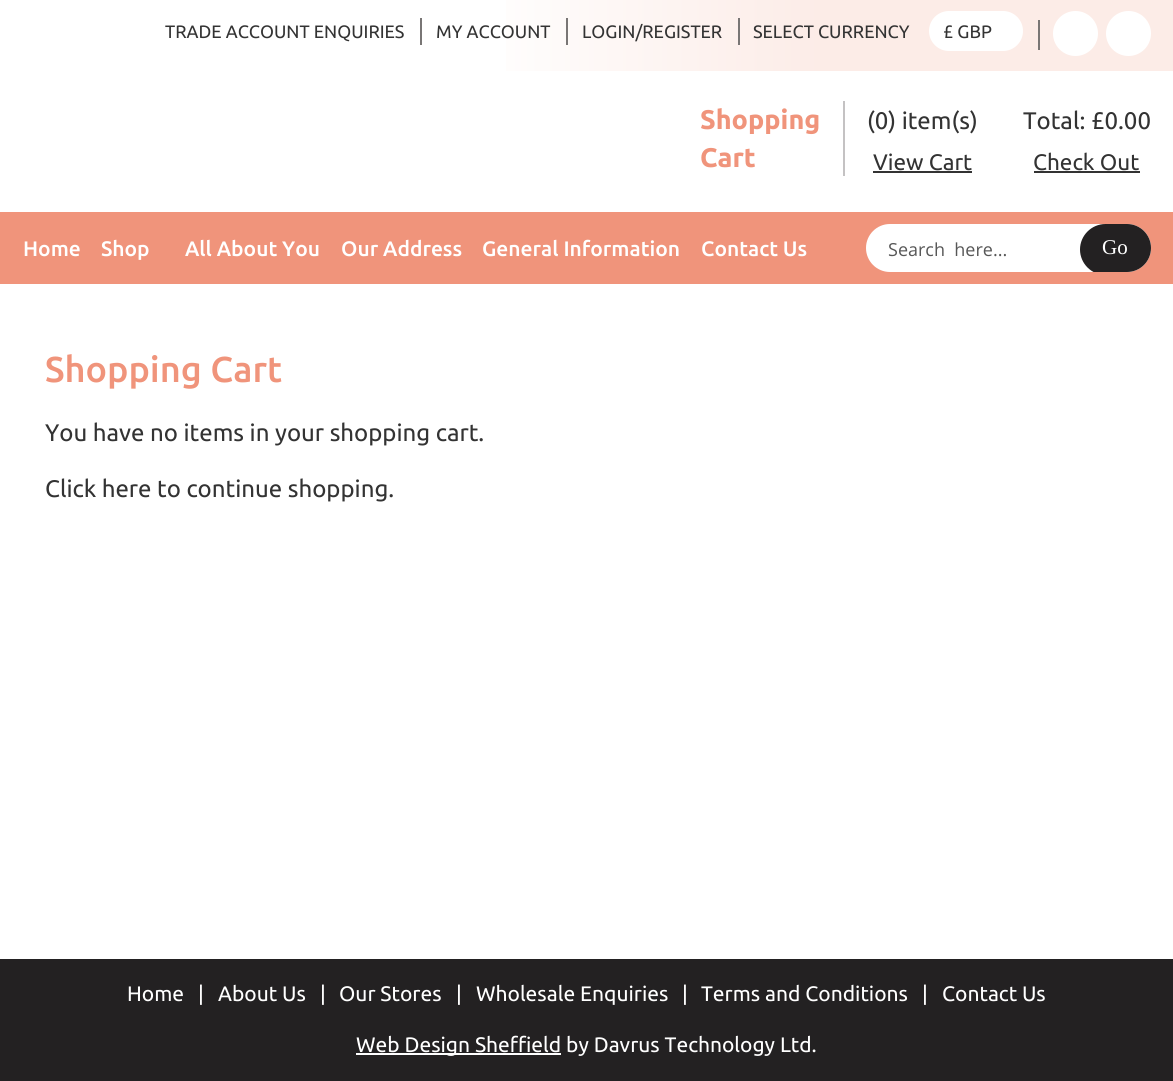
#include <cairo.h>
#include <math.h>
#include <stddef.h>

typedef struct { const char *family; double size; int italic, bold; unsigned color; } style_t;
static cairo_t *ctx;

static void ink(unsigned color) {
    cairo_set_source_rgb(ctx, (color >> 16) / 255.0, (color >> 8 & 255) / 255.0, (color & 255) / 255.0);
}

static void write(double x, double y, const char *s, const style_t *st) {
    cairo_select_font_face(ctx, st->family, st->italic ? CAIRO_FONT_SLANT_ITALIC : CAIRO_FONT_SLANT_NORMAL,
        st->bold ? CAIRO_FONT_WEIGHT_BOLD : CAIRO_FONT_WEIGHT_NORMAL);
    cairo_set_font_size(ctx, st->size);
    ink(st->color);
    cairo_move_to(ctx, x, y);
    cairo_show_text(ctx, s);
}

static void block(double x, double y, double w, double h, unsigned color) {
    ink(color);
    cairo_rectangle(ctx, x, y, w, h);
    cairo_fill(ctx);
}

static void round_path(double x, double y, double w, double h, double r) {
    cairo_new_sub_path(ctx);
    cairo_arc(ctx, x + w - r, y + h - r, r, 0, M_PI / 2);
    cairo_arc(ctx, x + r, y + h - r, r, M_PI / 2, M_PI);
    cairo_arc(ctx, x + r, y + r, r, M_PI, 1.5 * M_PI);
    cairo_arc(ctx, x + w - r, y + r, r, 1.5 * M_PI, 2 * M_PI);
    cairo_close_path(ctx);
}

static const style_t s1 = {"Ubuntu", 18, 0, 0, 0x333333};
static const style_t s2 = {"Ubuntu", 27, 0, 1, 0xf0947b};
static const style_t s3 = {"Ubuntu", 24, 0, 0, 0x333333};
static const style_t s4 = {"Ubuntu", 22.5, 0, 0, 0x333333};
static const style_t s5 = {"Ubuntu Medium", 21, 0, 0, 0xffffff};
static const style_t s6 = {"Open Sans", 18, 0, 0, 0x575757};
static const style_t s7 = {"Liberation Serif", 21, 0, 0, 0xffffff};
static const style_t s8 = {"Ubuntu Medium", 36, 0, 0, 0xf0947b};
static const style_t s9 = {"Ubuntu", 21, 0, 0, 0xffffff};

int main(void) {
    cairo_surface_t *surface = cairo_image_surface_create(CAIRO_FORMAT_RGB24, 1173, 1081);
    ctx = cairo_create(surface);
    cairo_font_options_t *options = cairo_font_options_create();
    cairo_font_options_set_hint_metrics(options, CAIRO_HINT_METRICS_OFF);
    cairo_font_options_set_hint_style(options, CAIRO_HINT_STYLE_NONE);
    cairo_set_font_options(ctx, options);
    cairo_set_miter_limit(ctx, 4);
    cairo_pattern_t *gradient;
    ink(0xffffff);
    cairo_paint(ctx);
    gradient = cairo_pattern_create_linear(1173, 35, 0, 35);
    cairo_pattern_add_color_stop_rgba(gradient, 0.3, 0.988, 0.925, 0.906, 1);
    cairo_pattern_add_color_stop_rgba(gradient, 0.6, 1, 1, 1, 1);
    cairo_set_source(ctx, gradient);
    cairo_pattern_destroy(gradient);
    cairo_rectangle(ctx, 506, 0, 667, 71);
    cairo_fill(ctx);
    write(165, 38, "TRADE ACCOUNT ENQUIRIES", &s1);
    block(420, 18, 2, 27, 0x797675);
    write(436, 38, "MY ACCOUNT", &s1);
    block(738, 18, 2, 27, 0x797675);
    block(566, 18, 2, 27, 0x797675);
    write(582, 38, "LOGIN/REGISTER", &s1);
    write(753, 38, "SELECT CURRENCY", &s1);
    ink(0xffffff);
    round_path(929, 11, 94, 40, 20);
    cairo_fill(ctx);
    write(943, 38, "£ GBP", &s1);
    block(1038, 20, 2, 30, 0x797675);
    ink(0xffffff);
    cairo_new_path(ctx);
    cairo_arc(ctx, 1075.5, 33.5, 22.5, 0, 2 * M_PI);
    cairo_fill(ctx);
    cairo_arc(ctx, 1128.5, 33.5, 22.5, 0, 2 * M_PI);
    cairo_fill(ctx);
    block(843, 101, 2, 75, 0xc4c2c3);
    write(700, 129, "Shopping", &s2);
    write(700, 167, "Cart", &s2);
    write(867, 129, "(0) item(s)", &s3);
    write(873, 170, "View Cart", &s4);
    block(873, 171, 99, 2, 0x333333);
    write(1023, 129, "Total: £0.00", &s3);
    write(1033, 170, "Check Out", &s4);
    block(1034, 171, 106, 2, 0x333333);
    block(0, 212, 1173, 72, 0xf0947b);
    write(23, 256, "Home", &s5);
    write(101, 256, "Shop", &s5);
    write(185, 256, "All About You", &s5);
    write(341, 256, "Our Address", &s5);
    write(482, 256, "General Information", &s5);
    write(701, 256, "Contact Us", &s5);
    round_path(866, 224, 285, 48, 24);
    cairo_fill(ctx);
    write(888, 256, "Search  here...", &s6);
    cairo_save(ctx);
    round_path(866, 224, 285, 48, 24);
    cairo_clip(ctx);
    ink(0x232122);
    cairo_new_path(ctx);
    cairo_move_to(ctx, 1105.5, 224);
    cairo_line_to(ctx, 1151, 224);
    cairo_line_to(ctx, 1151, 275);
    cairo_line_to(ctx, 1105.5, 275);
    cairo_curve_to(ctx, 1091.5, 275, 1080, 263.5, 1080, 249.5);
    cairo_curve_to(ctx, 1080, 235.5, 1091.5, 224, 1105.5, 224);
    cairo_close_path(ctx);
    cairo_fill(ctx);
    cairo_restore(ctx);
    write(1102, 254, "Go", &s7);
    write(45, 382, "Shopping Cart", &s8);
    write(45, 441, "You have no items in your shopping cart.", &s3);
    write(45, 497, "Click here to continue shopping.", &s3);
    block(0, 959, 1173, 122, 0x232122);
    write(127, 1001, "Home", &s9);
    write(198, 1001, "|", &s9);
    write(218, 1001, "About Us", &s9);
    write(320, 1001, "|", &s9);
    write(339, 1001, "Our Stores", &s9);
    write(456, 1001, "|", &s9);
    write(476, 1001, "Wholesale Enquiries", &s9);
    write(682, 1001, "|", &s9);
    write(701, 1001, "Terms and Conditions", &s9);
    write(922, 1001, "|", &s9);
    write(942, 1001, "Contact Us", &s9);
    block(356, 1053, 205, 2, 0xffffff);
    write(356, 1052, "Web Design Sheffield by Davrus Technology Ltd.", &s9);
    cairo_surface_write_to_png(surface, "screenshot.png");
    cairo_font_options_destroy(options);
    cairo_destroy(ctx);
    cairo_surface_destroy(surface);
    return 0;
}
